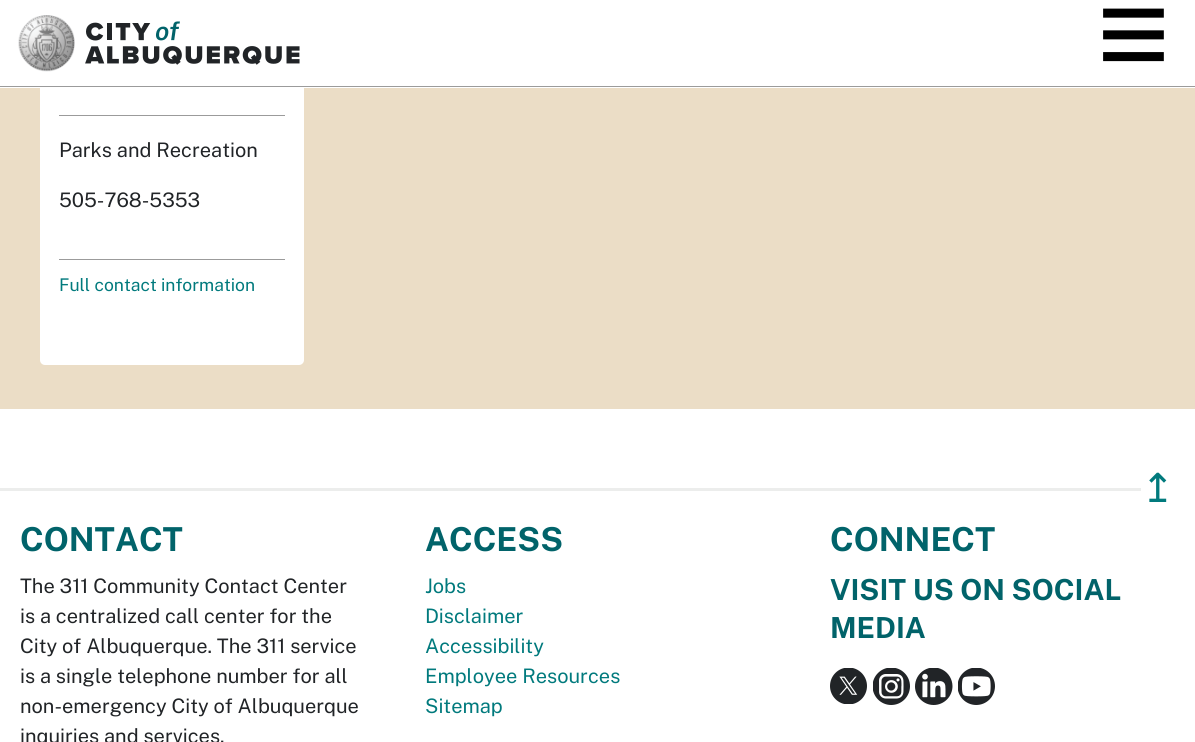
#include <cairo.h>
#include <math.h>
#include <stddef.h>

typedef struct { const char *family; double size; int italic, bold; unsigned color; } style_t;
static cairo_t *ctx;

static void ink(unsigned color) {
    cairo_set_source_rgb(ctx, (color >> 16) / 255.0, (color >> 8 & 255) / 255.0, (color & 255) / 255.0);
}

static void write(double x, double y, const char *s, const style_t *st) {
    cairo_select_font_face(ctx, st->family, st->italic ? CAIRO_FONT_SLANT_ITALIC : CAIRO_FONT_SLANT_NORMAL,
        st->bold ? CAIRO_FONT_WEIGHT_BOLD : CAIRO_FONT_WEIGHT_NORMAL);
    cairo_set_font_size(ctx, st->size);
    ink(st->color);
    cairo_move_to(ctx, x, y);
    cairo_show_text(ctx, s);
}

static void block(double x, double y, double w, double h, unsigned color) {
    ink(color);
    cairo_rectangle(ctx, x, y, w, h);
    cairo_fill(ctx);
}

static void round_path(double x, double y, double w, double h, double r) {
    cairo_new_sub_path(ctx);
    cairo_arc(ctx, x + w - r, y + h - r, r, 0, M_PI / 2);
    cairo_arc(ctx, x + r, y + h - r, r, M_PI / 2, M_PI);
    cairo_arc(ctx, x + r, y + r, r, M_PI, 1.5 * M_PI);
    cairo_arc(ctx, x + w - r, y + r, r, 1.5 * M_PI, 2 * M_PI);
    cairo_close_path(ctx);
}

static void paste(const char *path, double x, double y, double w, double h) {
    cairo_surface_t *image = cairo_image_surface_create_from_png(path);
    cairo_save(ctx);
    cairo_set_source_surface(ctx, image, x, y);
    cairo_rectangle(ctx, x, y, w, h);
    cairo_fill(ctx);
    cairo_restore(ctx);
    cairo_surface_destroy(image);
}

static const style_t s1 = {"Liberation Sans", 125, 0, 0, 0x000000};
static const style_t s2 = {"Public Sans", 20, 0, 0, 0x212427};
static const style_t s3 = {"Public Sans", 17.5, 0, 0, 0x017a7d};
static const style_t s4 = {"DejaVu Sans", 40, 0, 0, 0x017a7d};
static const style_t s5 = {"Public Sans", 33, 0, 1, 0x01636a};
static const style_t s6 = {"Public Sans", 20, 0, 0, 0x017a7d};
static const style_t s7 = {"Public Sans", 29, 0, 1, 0x01636a};

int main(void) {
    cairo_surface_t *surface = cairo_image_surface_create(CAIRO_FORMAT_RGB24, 1195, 742);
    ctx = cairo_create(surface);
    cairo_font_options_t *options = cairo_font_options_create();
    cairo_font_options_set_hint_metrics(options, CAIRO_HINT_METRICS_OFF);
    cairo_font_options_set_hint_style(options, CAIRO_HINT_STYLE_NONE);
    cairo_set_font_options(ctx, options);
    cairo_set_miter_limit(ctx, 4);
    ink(0xffffff);
    cairo_paint(ctx);
    write(1097, 76, "≡", &s1);
    block(0, 88, 1195, 321, 0xebddc6);
    ink(0xffffff);
    round_path(40, -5, 264, 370, 5);
    cairo_fill(ctx);
    block(0, 86, 1195, 1, 0x9b9b9b);
    paste("pic1.png", 18, 15, 57, 57);
    paste("pic2.png", 85, 21, 215, 44);
    block(59, 115, 226, 1, 0x9b9b9b);
    write(59, 157, "Parks and Recreation", &s2);
    write(59, 207, "505-768-5353", &s2);
    block(59, 259, 226, 1, 0x9b9b9b);
    write(59, 291, "Full contact information", &s3);
    block(0, 488, 1141, 3, 0xecedec);
    write(1141, 502, "↥", &s4);
    write(20, 551, "CONTACT", &s5);
    write(20, 593, "The 311 Community Contact Center", &s2);
    write(20, 623, "is a centralized call center for the", &s2);
    write(20, 653, "City of Albuquerque. The 311 service", &s2);
    write(20, 683, "is a single telephone number for all", &s2);
    write(20, 713, "non-emergency City of Albuquerque", &s2);
    write(20, 743, "inquiries and services.", &s2);
    write(425, 551, "ACCESS", &s5);
    write(425, 593, "Jobs", &s6);
    write(425, 623, "Disclaimer", &s6);
    write(425, 653, "Accessibility", &s6);
    write(425, 683, "Employee Resources", &s6);
    write(425, 713, "Sitemap", &s6);
    write(830, 551, "CONNECT", &s5);
    write(830, 600, "VISIT US ON SOCIAL", &s7);
    write(830, 638, "MEDIA", &s7);
    paste("pic3.png", 830, 668, 37, 36);
    paste("pic4.png", 873, 668, 37, 37);
    paste("pic5.png", 915, 668, 38, 37);
    paste("pic6.png", 958, 668, 37, 37);
    cairo_surface_write_to_png(surface, "screenshot.png");
    cairo_font_options_destroy(options);
    cairo_destroy(ctx);
    cairo_surface_destroy(surface);
    return 0;
}
